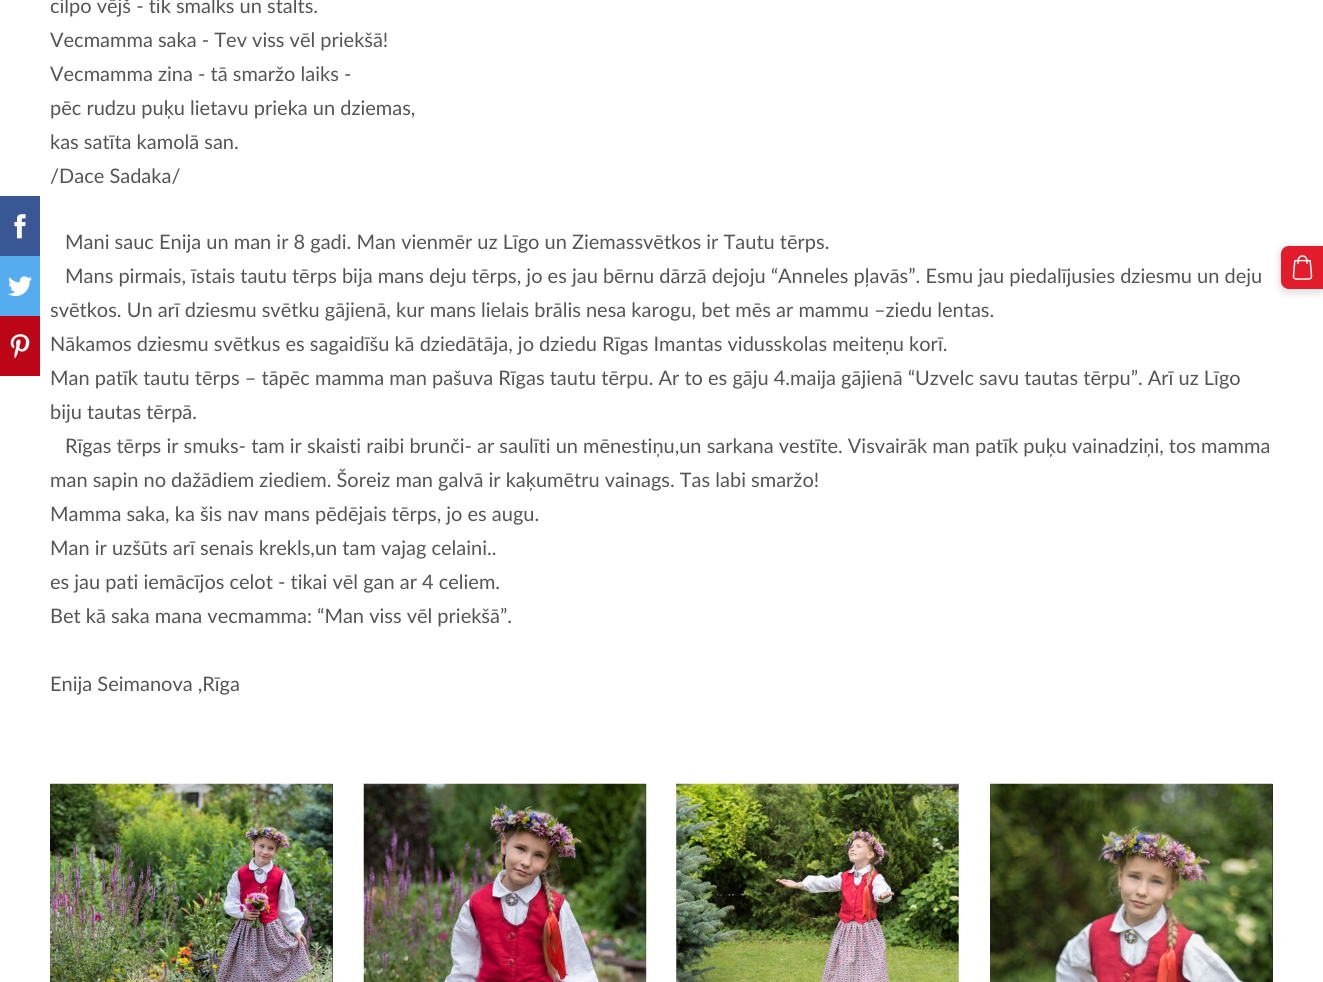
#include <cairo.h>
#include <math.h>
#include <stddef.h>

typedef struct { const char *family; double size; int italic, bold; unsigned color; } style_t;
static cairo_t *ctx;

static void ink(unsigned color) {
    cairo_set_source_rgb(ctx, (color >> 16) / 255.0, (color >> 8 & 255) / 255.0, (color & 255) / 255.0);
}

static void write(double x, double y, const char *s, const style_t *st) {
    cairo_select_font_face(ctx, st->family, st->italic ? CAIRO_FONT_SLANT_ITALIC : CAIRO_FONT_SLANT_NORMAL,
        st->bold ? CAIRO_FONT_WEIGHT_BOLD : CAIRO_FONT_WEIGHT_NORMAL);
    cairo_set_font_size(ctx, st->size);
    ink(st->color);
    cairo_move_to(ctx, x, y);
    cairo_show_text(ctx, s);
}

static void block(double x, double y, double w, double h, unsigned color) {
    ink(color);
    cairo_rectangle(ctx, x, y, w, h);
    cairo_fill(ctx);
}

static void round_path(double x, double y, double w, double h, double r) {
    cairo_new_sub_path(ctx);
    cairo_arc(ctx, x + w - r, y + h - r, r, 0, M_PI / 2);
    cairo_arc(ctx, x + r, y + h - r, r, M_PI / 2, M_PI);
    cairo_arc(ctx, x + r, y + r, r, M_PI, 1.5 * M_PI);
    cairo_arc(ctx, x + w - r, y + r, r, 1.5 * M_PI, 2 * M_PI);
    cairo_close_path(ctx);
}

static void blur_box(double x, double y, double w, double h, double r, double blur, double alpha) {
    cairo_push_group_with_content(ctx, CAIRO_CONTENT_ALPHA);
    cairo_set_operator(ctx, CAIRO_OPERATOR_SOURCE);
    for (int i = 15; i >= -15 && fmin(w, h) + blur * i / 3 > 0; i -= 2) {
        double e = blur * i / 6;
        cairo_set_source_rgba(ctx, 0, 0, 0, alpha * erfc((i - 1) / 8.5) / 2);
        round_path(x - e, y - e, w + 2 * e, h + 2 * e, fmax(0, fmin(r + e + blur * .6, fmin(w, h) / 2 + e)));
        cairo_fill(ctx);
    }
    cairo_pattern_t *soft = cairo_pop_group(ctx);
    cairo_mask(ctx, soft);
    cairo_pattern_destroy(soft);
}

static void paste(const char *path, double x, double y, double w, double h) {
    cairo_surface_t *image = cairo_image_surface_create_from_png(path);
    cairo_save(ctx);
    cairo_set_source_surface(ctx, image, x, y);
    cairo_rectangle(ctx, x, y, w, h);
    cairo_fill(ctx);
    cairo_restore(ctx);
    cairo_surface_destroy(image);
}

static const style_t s1 = {"Lato", 20, 0, 0, 0x555555};

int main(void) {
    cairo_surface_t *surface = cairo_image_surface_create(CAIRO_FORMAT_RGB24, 1323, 982);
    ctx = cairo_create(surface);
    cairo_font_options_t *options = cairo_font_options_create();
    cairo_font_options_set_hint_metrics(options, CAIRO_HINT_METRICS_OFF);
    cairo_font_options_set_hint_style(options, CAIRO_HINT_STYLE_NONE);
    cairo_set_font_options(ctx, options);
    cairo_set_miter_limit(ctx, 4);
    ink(0xffffff);
    cairo_paint(ctx);
    block(0, 196, 40, 60, 0x3a5795);
    paste("pic1.png", 14, 214, 12, 25);
    block(0, 256, 40, 60, 0x55acee);
    paste("pic2.png", 8, 276, 24, 21);
    block(0, 316, 40, 60, 0xbc0618);
    paste("pic3.png", 10, 334, 20, 25);
    write(50, 13, "cilpo vējš - tik smalks un stalts.", &s1);
    write(50, 47, "Vecmamma saka - Tev viss vēl priekšā!", &s1);
    write(50, 81, "Vecmamma zina - tā smaržo laiks -", &s1);
    write(50, 115, "pēc rudzu puķu lietavu prieka un dziemas,", &s1);
    write(50, 149, "kas satīta kamolā san.", &s1);
    write(50, 183, "/Dace Sadaka/", &s1);
    write(65, 249, "Mani sauc Enija un man ir 8 gadi. Man vienmēr uz Līgo un Ziemassvētkos ir Tautu tērps.", &s1);
    write(65, 283, "Mans pirmais, īstais tautu tērps bija mans deju tērps, jo es jau bērnu dārzā dejoju “Anneles pļavās”. Esmu jau piedalījusies dziesmu un deju", &s1);
    write(50, 317, "svētkos. Un arī dziesmu svētku gājienā, kur mans lielais brālis nesa karogu, bet mēs ar mammu –ziedu lentas.", &s1);
    write(50, 351, "Nākamos dziesmu svētkus es sagaidīšu kā dziedātāja, jo dziedu Rīgas Imantas vidusskolas meiteņu korī.", &s1);
    write(50, 385, "Man patīk tautu tērps – tāpēc mamma man pašuva Rīgas tautu tērpu. Ar to es gāju 4.maija gājienā “Uzvelc savu tautas tērpu”. Arī uz Līgo", &s1);
    write(50, 419, "biju tautas tērpā.", &s1);
    write(65, 453, "Rīgas tērps ir smuks- tam ir skaisti raibi brunči- ar saulīti un mēnestiņu,un sarkana vestīte. Visvairāk man patīk puķu vainadziņi, tos mamma", &s1);
    write(50, 487, "man sapin no dažādiem ziediem. Šoreiz man galvā ir kaķumētru vainags. Tas labi smaržo!", &s1);
    write(50, 521, "Mamma saka, ka šis nav mans pēdējais tērps, jo es augu.", &s1);
    write(50, 555, "Man ir uzšūts arī senais krekls,un tam vajag celaini..", &s1);
    write(50, 589, "es jau pati iemācījos celot - tikai vēl gan ar 4 celiem.", &s1);
    write(50, 623, "Bet kā saka mana vecmamma: “Man viss vēl priekšā”.", &s1);
    write(50, 691, "Enija Seimanova ,Rīga", &s1);
    block(332, 784, 1, 198, 0x222222);
    paste("pic4.png", 50, 783, 283, 199);
    paste("pic5.png", 363, 783, 284, 199);
    paste("pic6.png", 676, 783, 283, 199);
    block(1272, 784, 1, 198, 0x222222);
    paste("pic7.png", 990, 783, 283, 199);
    ink(0x000000);
    blur_box(1278, 245, 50, 50, 11, 3, 0.1);
    ink(0xe21c2b);
    cairo_new_path(ctx);
    cairo_move_to(ctx, 1289, 246);
    cairo_line_to(ctx, 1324, 246);
    cairo_line_to(ctx, 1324, 289);
    cairo_line_to(ctx, 1289, 289);
    cairo_curve_to(ctx, 1284.5, 289, 1281, 285.5, 1281, 281);
    cairo_line_to(ctx, 1281, 254);
    cairo_curve_to(ctx, 1281, 249.5, 1284.5, 246, 1289, 246);
    cairo_close_path(ctx);
    cairo_fill(ctx);
    paste("pic8.png", 1292, 255, 21, 25);
    cairo_surface_write_to_png(surface, "screenshot.png");
    cairo_font_options_destroy(options);
    cairo_destroy(ctx);
    cairo_surface_destroy(surface);
    return 0;
}
